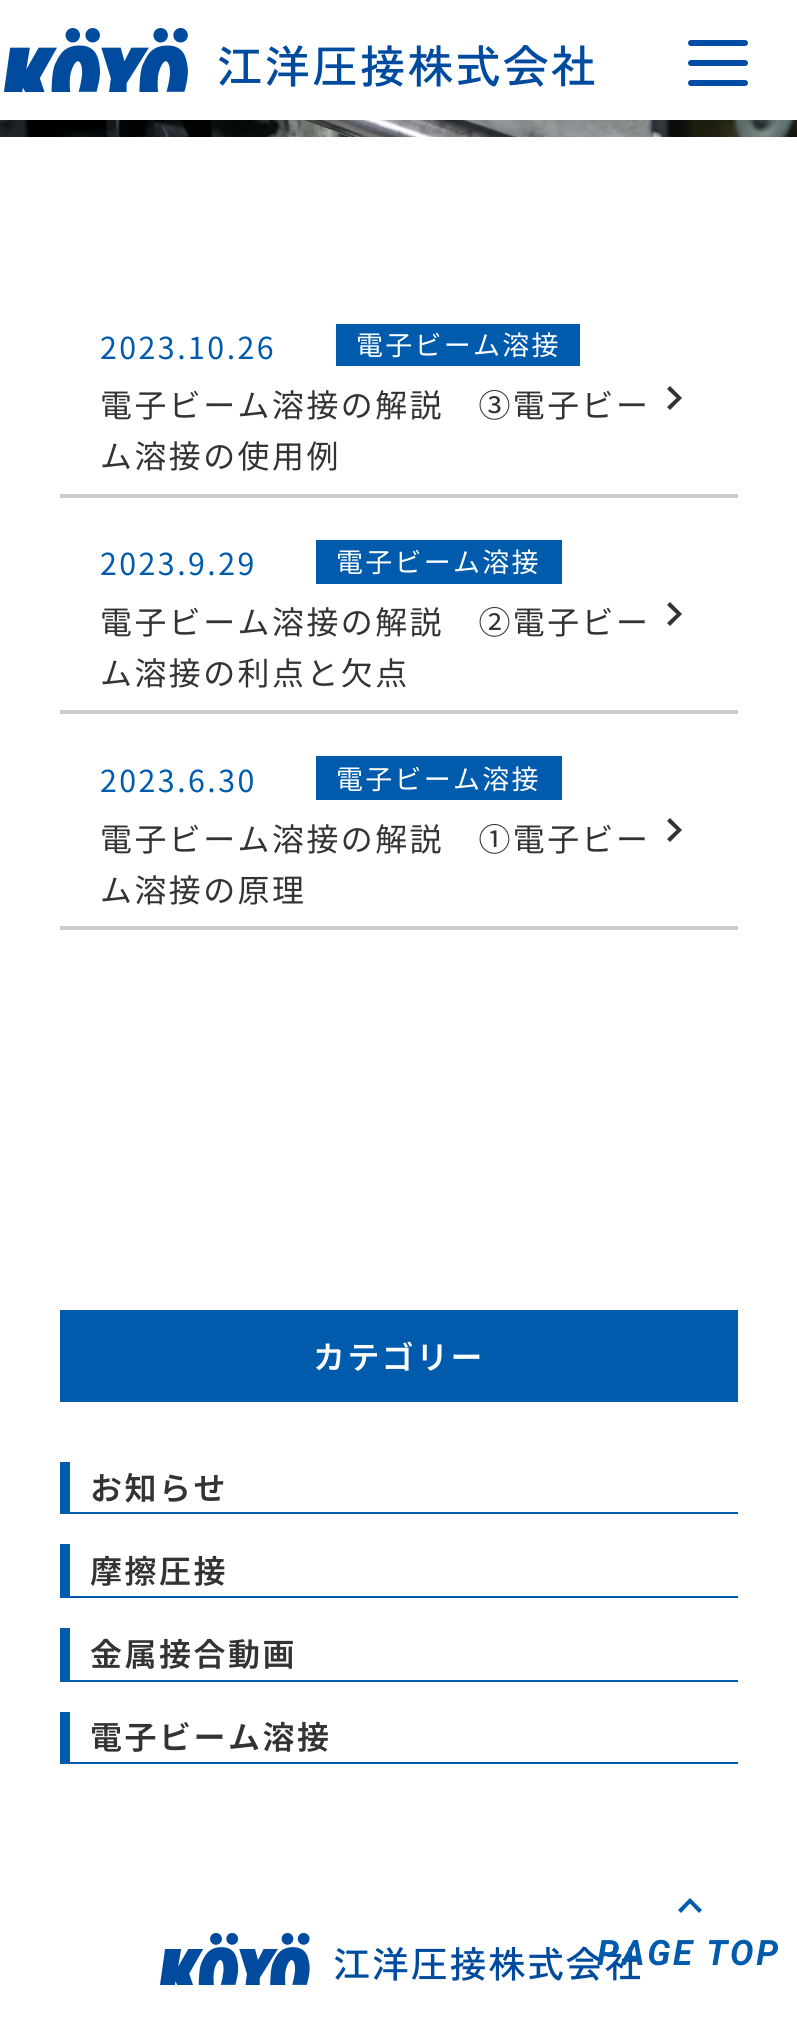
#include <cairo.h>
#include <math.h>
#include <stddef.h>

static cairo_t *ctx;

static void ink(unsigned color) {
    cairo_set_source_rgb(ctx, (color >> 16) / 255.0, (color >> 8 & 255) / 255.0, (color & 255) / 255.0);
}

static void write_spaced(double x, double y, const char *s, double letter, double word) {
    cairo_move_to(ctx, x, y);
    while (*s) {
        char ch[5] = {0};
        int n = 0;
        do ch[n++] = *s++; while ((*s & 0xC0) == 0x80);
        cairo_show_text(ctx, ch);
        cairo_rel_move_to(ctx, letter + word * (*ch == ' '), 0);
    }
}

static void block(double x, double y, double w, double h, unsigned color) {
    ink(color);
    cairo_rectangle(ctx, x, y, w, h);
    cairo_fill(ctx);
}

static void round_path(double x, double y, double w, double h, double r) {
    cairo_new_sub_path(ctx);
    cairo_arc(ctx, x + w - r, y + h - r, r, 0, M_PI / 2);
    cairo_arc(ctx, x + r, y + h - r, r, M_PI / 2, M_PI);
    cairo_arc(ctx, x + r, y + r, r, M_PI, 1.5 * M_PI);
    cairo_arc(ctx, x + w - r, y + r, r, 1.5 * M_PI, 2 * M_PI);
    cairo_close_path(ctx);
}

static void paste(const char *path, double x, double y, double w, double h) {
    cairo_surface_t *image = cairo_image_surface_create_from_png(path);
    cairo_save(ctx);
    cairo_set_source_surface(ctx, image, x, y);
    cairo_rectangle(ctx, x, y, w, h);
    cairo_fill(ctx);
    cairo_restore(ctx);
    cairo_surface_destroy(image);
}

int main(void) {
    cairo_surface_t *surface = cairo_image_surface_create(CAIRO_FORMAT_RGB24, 797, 2035);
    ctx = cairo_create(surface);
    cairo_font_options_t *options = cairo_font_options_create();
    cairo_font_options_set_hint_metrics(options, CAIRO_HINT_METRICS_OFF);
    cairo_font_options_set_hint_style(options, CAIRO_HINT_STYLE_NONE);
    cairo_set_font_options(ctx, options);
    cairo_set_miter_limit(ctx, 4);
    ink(0xffffff);
    cairo_paint(ctx);
    paste("pic1.png", 4, 28, 591, 64);
    ink(0x004da3);
    round_path(688, 40, 60, 6, 3);
    cairo_fill(ctx);
    round_path(688, 60, 60, 6, 3);
    cairo_fill(ctx);
    round_path(688, 80, 60, 6, 3);
    cairo_fill(ctx);
    paste("pic2.png", 0, 120, 797, 18);
    cairo_select_font_face(ctx, "Noto Sans JP", CAIRO_FONT_SLANT_NORMAL, CAIRO_FONT_WEIGHT_NORMAL);
    cairo_set_font_size(ctx, 30.25);
    ink(0x005bac);
    write_spaced(100, 359, "2023.10.26", 2.5, 0);
    block(336, 324, 244, 42, 0x005bac);
    cairo_set_font_size(ctx, 27);
    ink(0xffffff);
    write_spaced(356, 355, "電子ビーム溶接", 2.25, 0);
    cairo_set_font_size(ctx, 31.9);
    ink(0x333333);
    write_spaced(100, 417, "電子ビーム溶接の解説　③電子ビー", 2.5, 0);
    write_spaced(100, 468, "ム溶接の使用例", 2.5, 0);
    cairo_new_path(ctx);
    cairo_move_to(ctx, 667, 407);
    cairo_line_to(ctx, 676.5, 398);
    cairo_line_to(ctx, 667, 389);
    cairo_line_to(ctx, 670, 386);
    cairo_line_to(ctx, 682, 398);
    cairo_line_to(ctx, 670, 410);
    cairo_close_path(ctx);
    cairo_fill(ctx);
    block(60, 494, 678, 4, 0xcccccc);
    cairo_set_font_size(ctx, 30.25);
    ink(0x005bac);
    write_spaced(100, 575, "2023.9.29", 2.5, 0);
    block(316, 540, 246, 44, 0x005bac);
    cairo_set_font_size(ctx, 27);
    ink(0xffffff);
    write_spaced(336, 572, "電子ビーム溶接", 2.25, 0);
    cairo_set_font_size(ctx, 31.9);
    ink(0x333333);
    write_spaced(100, 634, "電子ビーム溶接の解説　②電子ビー", 2.5, 0);
    write_spaced(100, 685, "ム溶接の利点と欠点", 2.5, 0);
    cairo_new_path(ctx);
    cairo_move_to(ctx, 667, 623);
    cairo_line_to(ctx, 676.5, 614);
    cairo_line_to(ctx, 667, 605);
    cairo_line_to(ctx, 670, 602);
    cairo_line_to(ctx, 682, 614);
    cairo_line_to(ctx, 670, 626);
    cairo_close_path(ctx);
    cairo_fill(ctx);
    block(60, 710, 678, 4, 0xcccccc);
    cairo_set_font_size(ctx, 30.25);
    ink(0x005bac);
    write_spaced(100, 792, "2023.6.30", 2.5, 0);
    block(316, 756, 246, 44, 0x005bac);
    cairo_set_font_size(ctx, 27);
    ink(0xffffff);
    write_spaced(336, 789, "電子ビーム溶接", 2.25, 0);
    cairo_set_font_size(ctx, 31.9);
    ink(0x333333);
    write_spaced(100, 851, "電子ビーム溶接の解説　①電子ビー", 2.5, 0);
    write_spaced(100, 902, "ム溶接の原理", 2.5, 0);
    cairo_new_path(ctx);
    cairo_move_to(ctx, 667, 839);
    cairo_line_to(ctx, 676.5, 830);
    cairo_line_to(ctx, 667, 821);
    cairo_line_to(ctx, 670, 818);
    cairo_line_to(ctx, 682, 830);
    cairo_line_to(ctx, 670, 842);
    cairo_close_path(ctx);
    cairo_fill(ctx);
    block(60, 926, 678, 4, 0xcccccc);
    block(60, 1310, 678, 92, 0x005bac);
    cairo_select_font_face(ctx, "Noto Sans JP SemiBold", CAIRO_FONT_SLANT_NORMAL, CAIRO_FONT_WEIGHT_NORMAL);
    ink(0xffffff);
    write_spaced(313, 1369, "カテゴリー", 2.5, 0);
    block(70, 1512, 668, 2, 0x005bac);
    block(60, 1462, 10, 52, 0x005bac);
    cairo_set_font_size(ctx, 32);
    ink(0x333333);
    write_spaced(90, 1500, "お知らせ", 2.5, 0);
    block(70, 1596, 668, 2, 0x005bac);
    block(60, 1544, 10, 54, 0x005bac);
    ink(0x333333);
    write_spaced(90, 1583, "摩擦圧接", 2.5, 0);
    block(70, 1680, 668, 2, 0x005bac);
    block(60, 1628, 10, 54, 0x005bac);
    ink(0x333333);
    write_spaced(90, 1666, "金属接合動画", 2.5, 0);
    block(70, 1762, 668, 2, 0x005bac);
    block(60, 1712, 10, 52, 0x005bac);
    ink(0x333333);
    write_spaced(90, 1749, "電子ビーム溶接", 2.5, 0);
    paste("pic3.png", 160, 1933, 480, 52);
    ink(0x005bac);
    cairo_new_path(ctx);
    cairo_move_to(ctx, 681, 1913);
    cairo_line_to(ctx, 678, 1910);
    cairo_line_to(ctx, 690, 1898);
    cairo_line_to(ctx, 702, 1910);
    cairo_line_to(ctx, 699, 1913);
    cairo_line_to(ctx, 690, 1903.5);
    cairo_close_path(ctx);
    cairo_fill(ctx);
    cairo_select_font_face(ctx, "Roboto", CAIRO_FONT_SLANT_ITALIC, CAIRO_FONT_WEIGHT_BOLD);
    cairo_set_font_size(ctx, 35);
    write_spaced(597, 1965, "PAGE TOP", 2.75, 0);
    cairo_surface_write_to_png(surface, "screenshot.png");
    cairo_font_options_destroy(options);
    cairo_destroy(ctx);
    cairo_surface_destroy(surface);
    return 0;
}
